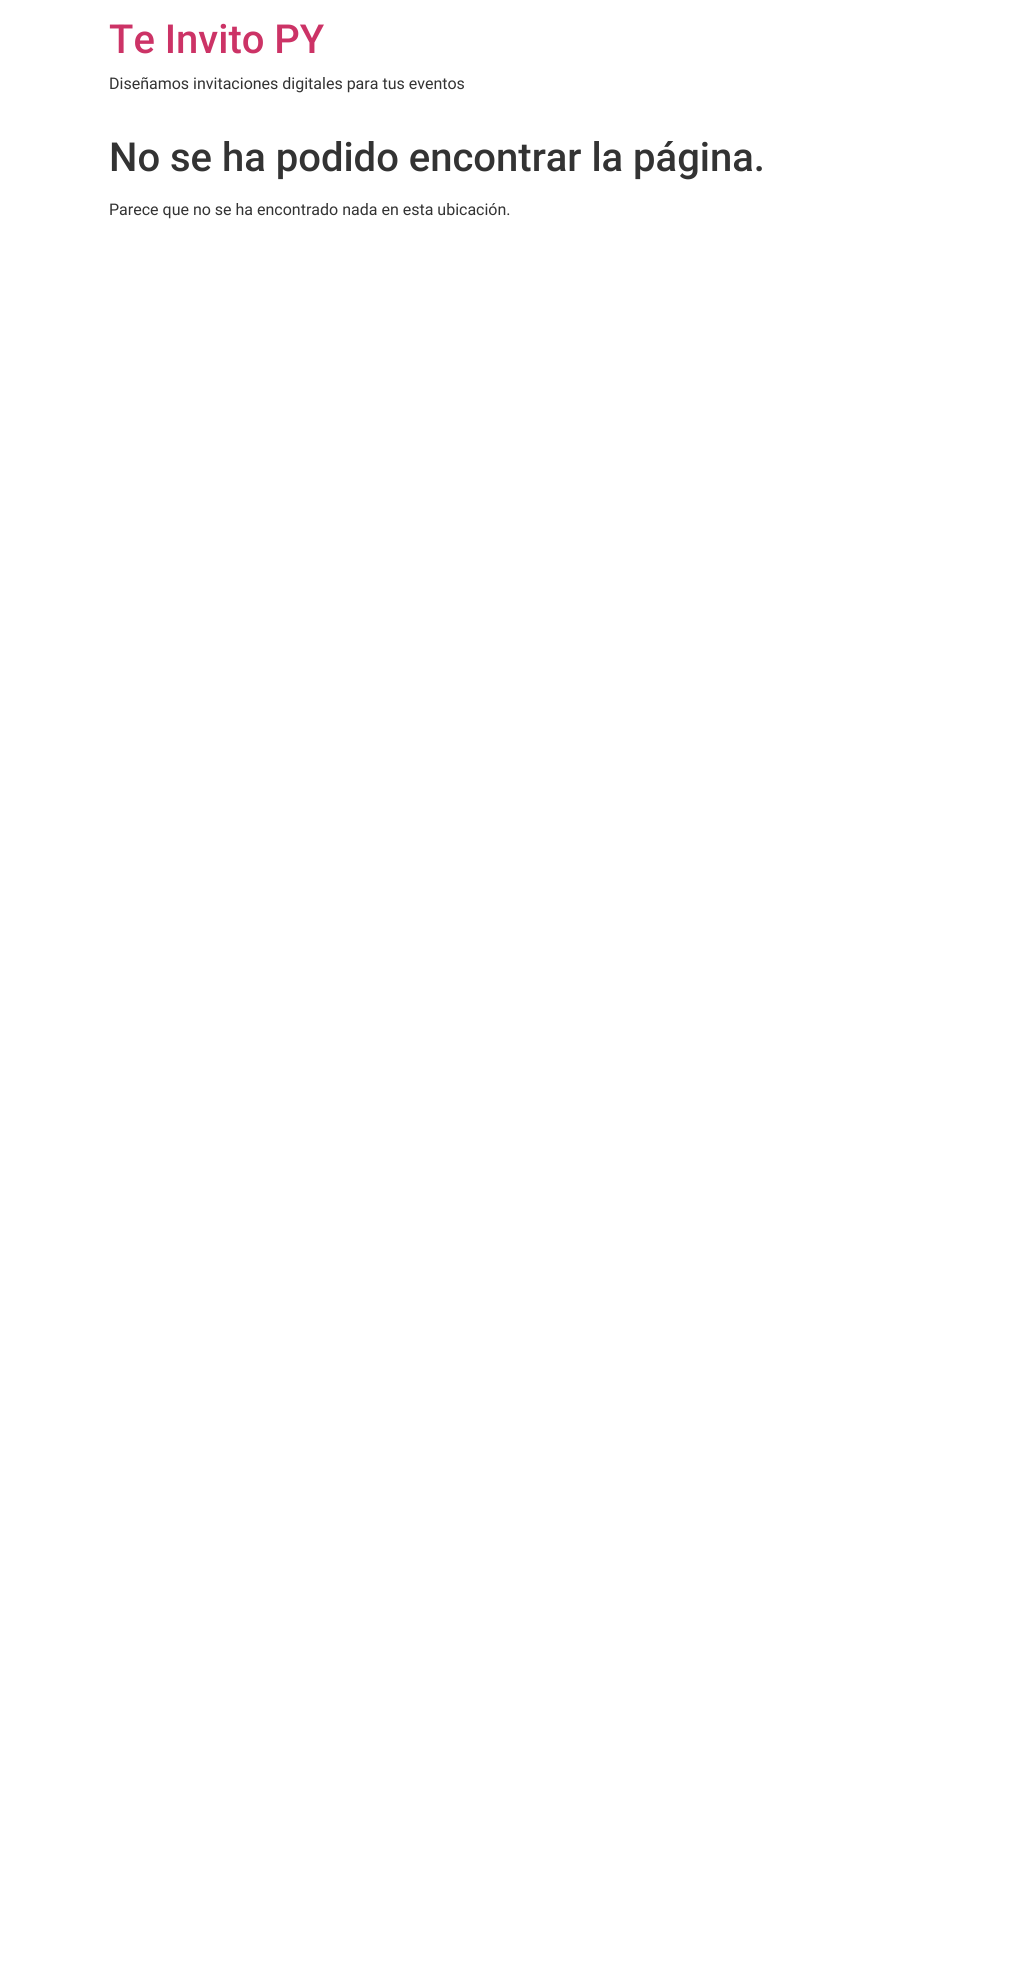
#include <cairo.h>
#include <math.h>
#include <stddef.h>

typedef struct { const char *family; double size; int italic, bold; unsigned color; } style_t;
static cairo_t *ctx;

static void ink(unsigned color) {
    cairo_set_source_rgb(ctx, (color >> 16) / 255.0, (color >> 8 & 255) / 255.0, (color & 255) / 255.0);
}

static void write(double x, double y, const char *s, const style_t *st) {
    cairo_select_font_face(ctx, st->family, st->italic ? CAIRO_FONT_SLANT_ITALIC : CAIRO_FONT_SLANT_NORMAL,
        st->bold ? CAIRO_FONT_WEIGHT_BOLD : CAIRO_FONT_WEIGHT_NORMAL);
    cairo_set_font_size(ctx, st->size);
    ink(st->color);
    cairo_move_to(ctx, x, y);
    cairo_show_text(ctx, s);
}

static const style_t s1 = {"Roboto Medium", 40, 0, 0, 0xcc3366};
static const style_t s2 = {"Roboto", 16, 0, 0, 0x333333};
static const style_t s3 = {"Roboto Medium", 40, 0, 0, 0x333333};

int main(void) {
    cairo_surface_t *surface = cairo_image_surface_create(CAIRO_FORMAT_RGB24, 1018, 1967);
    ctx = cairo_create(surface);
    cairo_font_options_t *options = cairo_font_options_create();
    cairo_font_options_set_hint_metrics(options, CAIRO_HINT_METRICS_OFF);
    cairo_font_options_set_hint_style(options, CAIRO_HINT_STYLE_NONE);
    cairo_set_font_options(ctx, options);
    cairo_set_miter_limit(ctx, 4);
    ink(0xffffff);
    cairo_paint(ctx);
    write(109, 53, "Te Invito PY", &s1);
    write(109, 89, "Diseñamos invitaciones digitales para tus eventos", &s2);
    write(109, 171, "No se ha podido encontrar la página.", &s3);
    write(109, 215, "Parece que no se ha encontrado nada en esta ubicación.", &s2);
    cairo_surface_write_to_png(surface, "screenshot.png");
    cairo_font_options_destroy(options);
    cairo_destroy(ctx);
    cairo_surface_destroy(surface);
    return 0;
}
